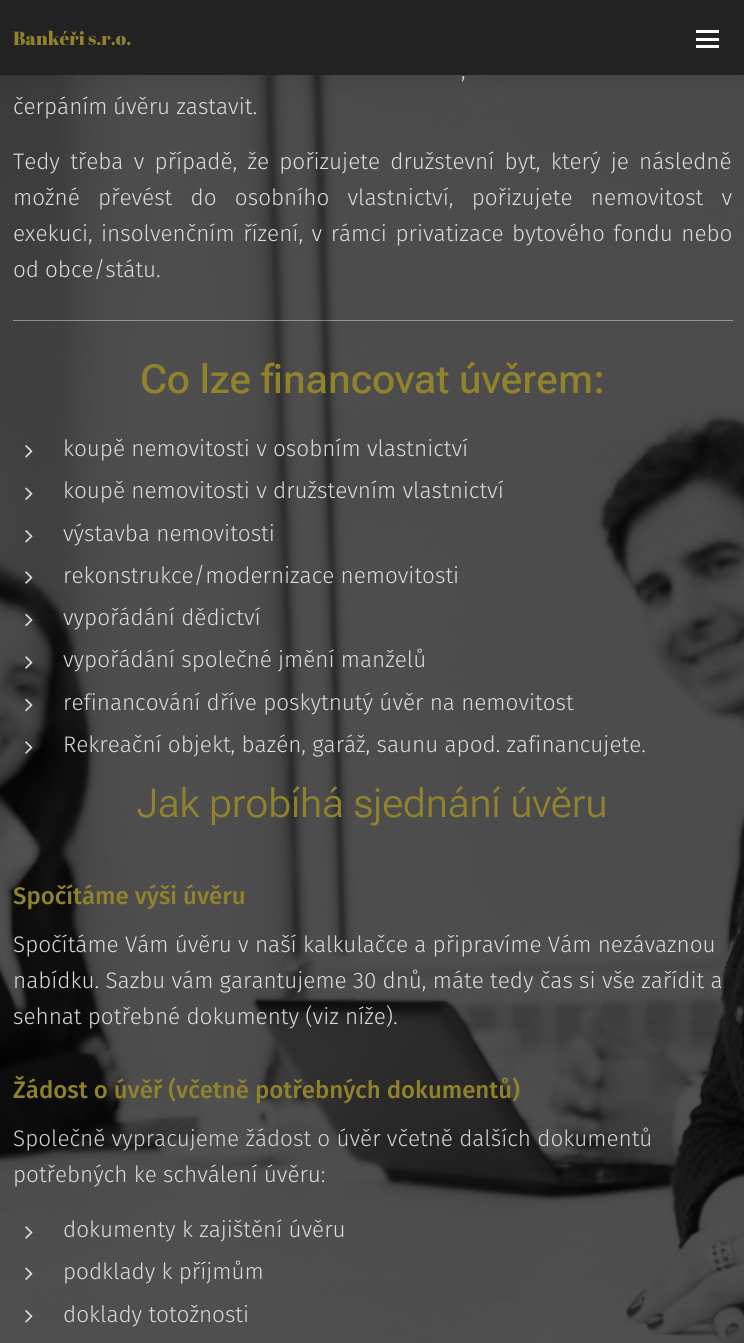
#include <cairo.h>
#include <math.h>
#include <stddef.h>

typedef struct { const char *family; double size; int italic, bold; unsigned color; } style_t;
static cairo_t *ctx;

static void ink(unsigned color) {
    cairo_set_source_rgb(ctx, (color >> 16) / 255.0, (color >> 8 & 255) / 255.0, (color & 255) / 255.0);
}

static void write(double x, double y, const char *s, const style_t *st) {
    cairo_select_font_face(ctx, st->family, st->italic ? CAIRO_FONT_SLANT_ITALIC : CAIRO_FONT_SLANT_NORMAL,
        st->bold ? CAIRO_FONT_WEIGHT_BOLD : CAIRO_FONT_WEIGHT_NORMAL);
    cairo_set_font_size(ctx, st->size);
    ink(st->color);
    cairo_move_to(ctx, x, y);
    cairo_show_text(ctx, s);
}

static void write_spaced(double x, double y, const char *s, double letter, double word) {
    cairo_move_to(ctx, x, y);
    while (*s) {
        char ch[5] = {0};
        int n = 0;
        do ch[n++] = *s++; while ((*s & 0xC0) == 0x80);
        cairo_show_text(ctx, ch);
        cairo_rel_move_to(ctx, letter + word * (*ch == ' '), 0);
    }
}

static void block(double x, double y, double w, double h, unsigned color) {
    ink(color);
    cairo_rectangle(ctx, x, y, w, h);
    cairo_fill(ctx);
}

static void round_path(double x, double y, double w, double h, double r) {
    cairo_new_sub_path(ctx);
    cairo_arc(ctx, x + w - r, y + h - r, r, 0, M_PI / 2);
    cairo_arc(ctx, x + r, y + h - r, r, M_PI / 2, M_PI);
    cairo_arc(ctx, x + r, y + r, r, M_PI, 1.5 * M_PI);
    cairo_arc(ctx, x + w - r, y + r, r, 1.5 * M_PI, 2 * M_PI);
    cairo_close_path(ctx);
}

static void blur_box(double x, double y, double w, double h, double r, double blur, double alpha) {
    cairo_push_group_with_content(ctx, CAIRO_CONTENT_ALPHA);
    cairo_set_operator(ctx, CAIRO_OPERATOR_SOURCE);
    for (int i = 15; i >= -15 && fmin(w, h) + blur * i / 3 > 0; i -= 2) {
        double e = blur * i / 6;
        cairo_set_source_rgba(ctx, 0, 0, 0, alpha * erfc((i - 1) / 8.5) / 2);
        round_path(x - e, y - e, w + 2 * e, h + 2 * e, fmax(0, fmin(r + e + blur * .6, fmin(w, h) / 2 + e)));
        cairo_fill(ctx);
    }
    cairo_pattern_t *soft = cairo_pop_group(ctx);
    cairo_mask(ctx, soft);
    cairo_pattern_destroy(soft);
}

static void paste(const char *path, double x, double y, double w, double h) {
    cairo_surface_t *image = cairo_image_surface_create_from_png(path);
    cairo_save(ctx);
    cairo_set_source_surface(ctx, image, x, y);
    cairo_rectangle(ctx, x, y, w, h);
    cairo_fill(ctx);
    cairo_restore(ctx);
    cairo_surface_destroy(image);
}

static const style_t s1 = {"Abril Fatface", 19, 0, 0, 0x91822c};
static const style_t s2 = {"Fira Sans Light", 22.5, 0, 0, 0xdbdbdb};
static const style_t s3 = {"Roboto Flex Medium", 40, 0, 0, 0x91822c};
static const style_t s4 = {"Roboto Flex Light", 40, 0, 0, 0x91822c};
static const style_t s5 = {"Fira Sans Medium", 24, 0, 0, 0x91822c};
static const style_t s6 = {"Fira Sans Light", 22.5, 0, 0, 0xd5d5d5};

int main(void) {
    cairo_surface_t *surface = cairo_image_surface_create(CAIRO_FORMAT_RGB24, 744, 1343);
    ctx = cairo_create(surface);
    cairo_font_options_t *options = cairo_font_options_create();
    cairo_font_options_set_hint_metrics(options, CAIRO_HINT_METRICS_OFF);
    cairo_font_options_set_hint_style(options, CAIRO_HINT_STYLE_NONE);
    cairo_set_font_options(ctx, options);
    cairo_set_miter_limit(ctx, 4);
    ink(0xffffff);
    cairo_paint(ctx);
    paste("pic1.png", 0, 75, 744, 1268);
    ink(0x000000);
    blur_box(0, 6, 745, 75, 0, 9.5, 0.07);
    block(0, 0, 744, 75, 0x222222);
    write(13, 45, "Bankéři s.r.o.", &s1);
    block(696, 38, 23, 3, 0xffffff);
    block(696, 30, 23, 3, 0xffffff);
    block(696, 45, 23, 3, 0xffffff);
    cairo_select_font_face(ctx, "Fira Sans Light", CAIRO_FONT_SLANT_NORMAL, CAIRO_FONT_WEIGHT_NORMAL);
    cairo_set_font_size(ctx, 22.5);
    ink(0xdbdbdb);
    write_spaced(461, 78, ",", 0, 9);
    write(13, 114, "čerpáním", &s2);
    write(113, 114, "úvěru zastavit.", &s2);
    write_spaced(13, 169, "Tedy třeba v případě, že pořizujete družstevní byt, který je následně", 0, 4);
    write_spaced(13, 205, "možné převést do osobního vlastnictví, pořizujete nemovitost v", 0, 12);
    write(13, 241, "exekuci,", &s2);
    write_spaced(101, 241, "insolvenčním řízení, v rámci privatizace bytového fondu nebo", 0, 2.25);
    write(13, 277, "od", &s2);
    write(45, 277, "obce/státu.", &s2);
    cairo_set_source_rgba(ctx, 1, 1, 1, 0.4);
    cairo_rectangle(ctx, 13, 320, 720, 1);
    cairo_fill(ctx);
    write(140, 393, "Co lze financovat úvěrem:", &s3);
    paste("pic2.png", 25, 445, 8, 13);
    write(63, 456, "koupě nemovitosti v osobním vlastnictví", &s2);
    paste("pic3.png", 25, 487, 8, 13);
    write(63, 498, "koupě nemovitosti v družstevním vlastnictví", &s2);
    paste("pic4.png", 25, 530, 8, 13);
    write(63, 541, "výstavba nemovitosti", &s2);
    paste("pic5.png", 25, 571, 8, 13);
    write(63, 583, "rekonstrukce/modernizace nemovitosti", &s2);
    paste("pic6.png", 25, 613, 8, 14);
    write(63, 625, "vypořádání dědictví", &s2);
    paste("pic7.png", 25, 656, 8, 13);
    write(63, 667, "vypořádání společné jmění manželů", &s2);
    paste("pic8.png", 25, 698, 8, 14);
    write(63, 710, "refinancování dříve poskytnutý úvěr na nemovitost", &s2);
    paste("pic9.png", 25, 741, 8, 13);
    write(63, 752, "Rekreační objekt, bazén, garáž, saunu apod. zafinancujete.", &s2);
    write(137, 817, "Jak probíhá sjednání úvěru", &s4);
    write(13, 904, "Spočítáme výši úvěru", &s5);
    write(13, 952, "Spočítáme Vám úvěru v naší kalkulačce a připravíme Vám nezávaznou", &s2);
    write(13, 988, "nabídku. Sazbu vám garantujeme 30 dnů, máte tedy čas si vše zařídit a", &s2);
    write(13, 1024, "sehnat potřebné dokumenty (viz níže).", &s2);
    write(13, 1098, "Žádost o úvěř (včetně potřebných dokumentů)", &s5);
    write(13, 1146, "Společně vypracujeme žádost o úvěr včetně dalších dokumentů", &s6);
    write(13, 1182, "potřebných ke schválení úvěru:", &s2);
    paste("pic10.png", 25, 1226, 8, 13);
    write(63, 1237, "dokumenty k zajištění úvěru", &s2);
    paste("pic11.png", 25, 1267, 8, 13);
    write(63, 1279, "podklady k příjmům", &s2);
    paste("pic12.png", 25, 1310, 8, 13);
    write(63, 1322, "doklady totožnosti", &s2);
    cairo_surface_write_to_png(surface, "screenshot.png");
    cairo_font_options_destroy(options);
    cairo_destroy(ctx);
    cairo_surface_destroy(surface);
    return 0;
}
